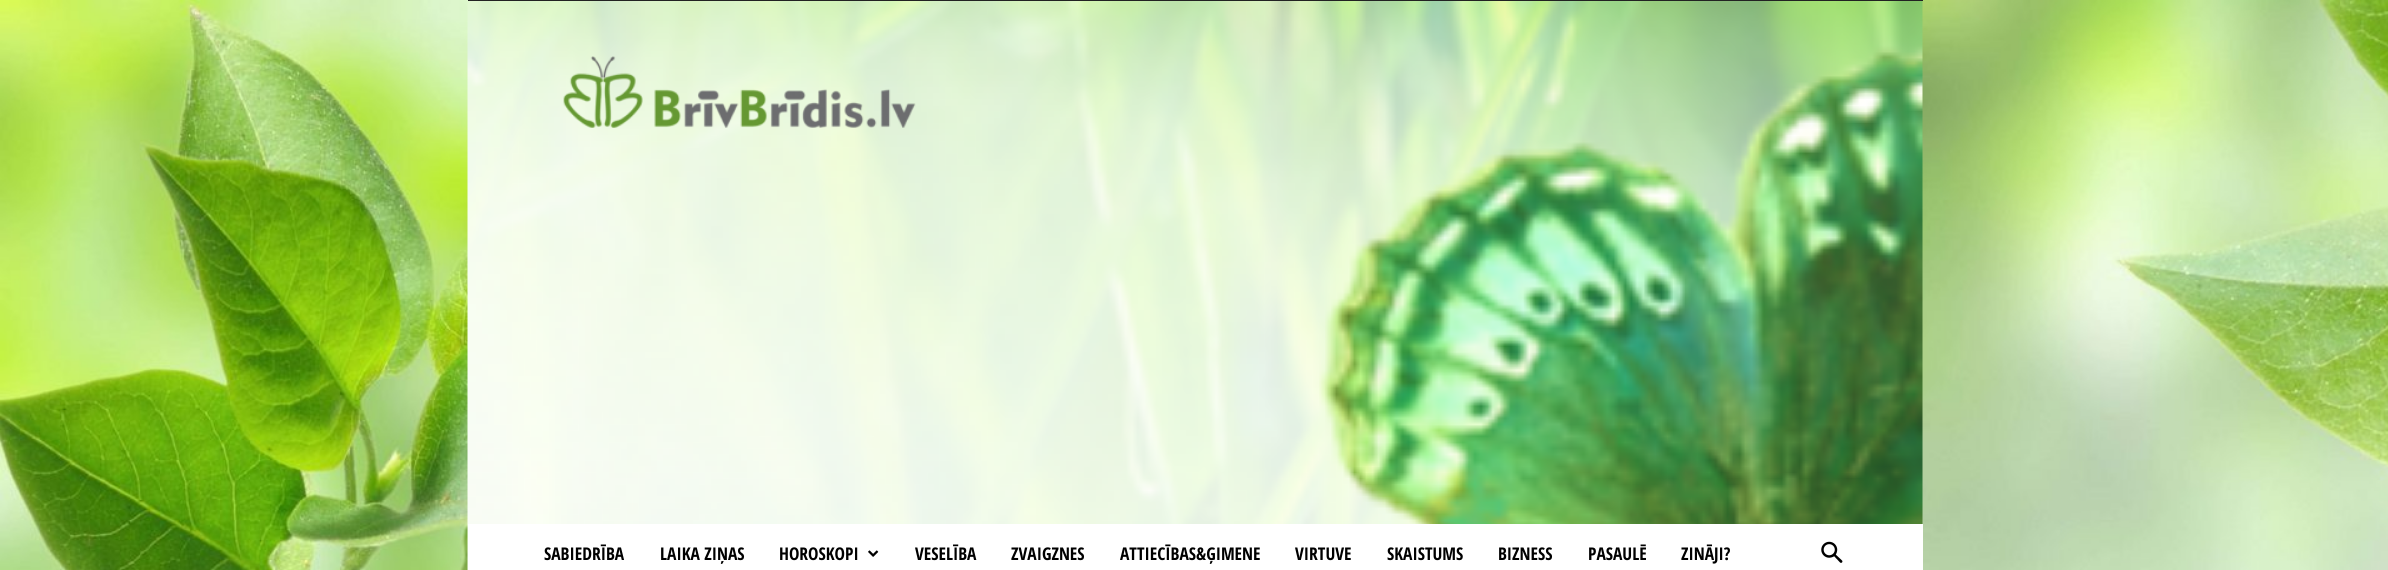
#include <cairo.h>
#include <math.h>
#include <stddef.h>

typedef struct { const char *family; double size; int italic, bold; unsigned color; } style_t;
static cairo_t *ctx;

static void ink(unsigned color) {
    cairo_set_source_rgb(ctx, (color >> 16) / 255.0, (color >> 8 & 255) / 255.0, (color & 255) / 255.0);
}

static void write(double x, double y, const char *s, const style_t *st) {
    cairo_select_font_face(ctx, st->family, st->italic ? CAIRO_FONT_SLANT_ITALIC : CAIRO_FONT_SLANT_NORMAL,
        st->bold ? CAIRO_FONT_WEIGHT_BOLD : CAIRO_FONT_WEIGHT_NORMAL);
    cairo_set_font_size(ctx, st->size);
    ink(st->color);
    cairo_move_to(ctx, x, y);
    cairo_show_text(ctx, s);
}

static void block(double x, double y, double w, double h, unsigned color) {
    ink(color);
    cairo_rectangle(ctx, x, y, w, h);
    cairo_fill(ctx);
}

static void paste(const char *path, double x, double y, double w, double h) {
    cairo_surface_t *image = cairo_image_surface_create_from_png(path);
    cairo_save(ctx);
    cairo_set_source_surface(ctx, image, x, y);
    cairo_rectangle(ctx, x, y, w, h);
    cairo_fill(ctx);
    cairo_restore(ctx);
    cairo_surface_destroy(image);
}

static const style_t s1 = {"Open Sans Condensed", 17.5, 0, 1, 0x000000};

int main(void) {
    cairo_surface_t *surface = cairo_image_surface_create(CAIRO_FORMAT_RGB24, 2388, 570);
    ctx = cairo_create(surface);
    cairo_font_options_t *options = cairo_font_options_create();
    cairo_font_options_set_hint_metrics(options, CAIRO_HINT_METRICS_OFF);
    cairo_font_options_set_hint_style(options, CAIRO_HINT_STYLE_NONE);
    cairo_set_font_options(ctx, options);
    cairo_set_miter_limit(ctx, 4);
    ink(0xffffff);
    cairo_paint(ctx);
    paste("pic1.png", 0, 0, 2388, 570);
    paste("pic2.png", 467, 0, 1456, 570);
    block(468, 0, 1455, 1, 0x222222);
    paste("pic3.png", 563, 56, 353, 72);
    block(468, 524, 1455, 46, 0xffffff);
    write(544, 560, "SABIEDRĪBA", &s1);
    write(660, 560, "LAIKA ZIŅAS", &s1);
    write(779, 560, "HOROSKOPI", &s1);
    paste("pic4.png", 868, 550, 11, 7);
    write(915, 560, "VESELĪBA", &s1);
    write(1011, 560, "ZVAIGZNES", &s1);
    write(1120, 560, "ATTIECĪBAS&ĢIMENE", &s1);
    write(1295, 560, "VIRTUVE", &s1);
    write(1387, 560, "SKAISTUMS", &s1);
    write(1498, 560, "BIZNESS", &s1);
    write(1588, 560, "PASAULĒ", &s1);
    write(1681, 560, "ZINĀJI?", &s1);
    paste("pic5.png", 1821, 541, 22, 22);
    cairo_surface_write_to_png(surface, "screenshot.png");
    cairo_font_options_destroy(options);
    cairo_destroy(ctx);
    cairo_surface_destroy(surface);
    return 0;
}
